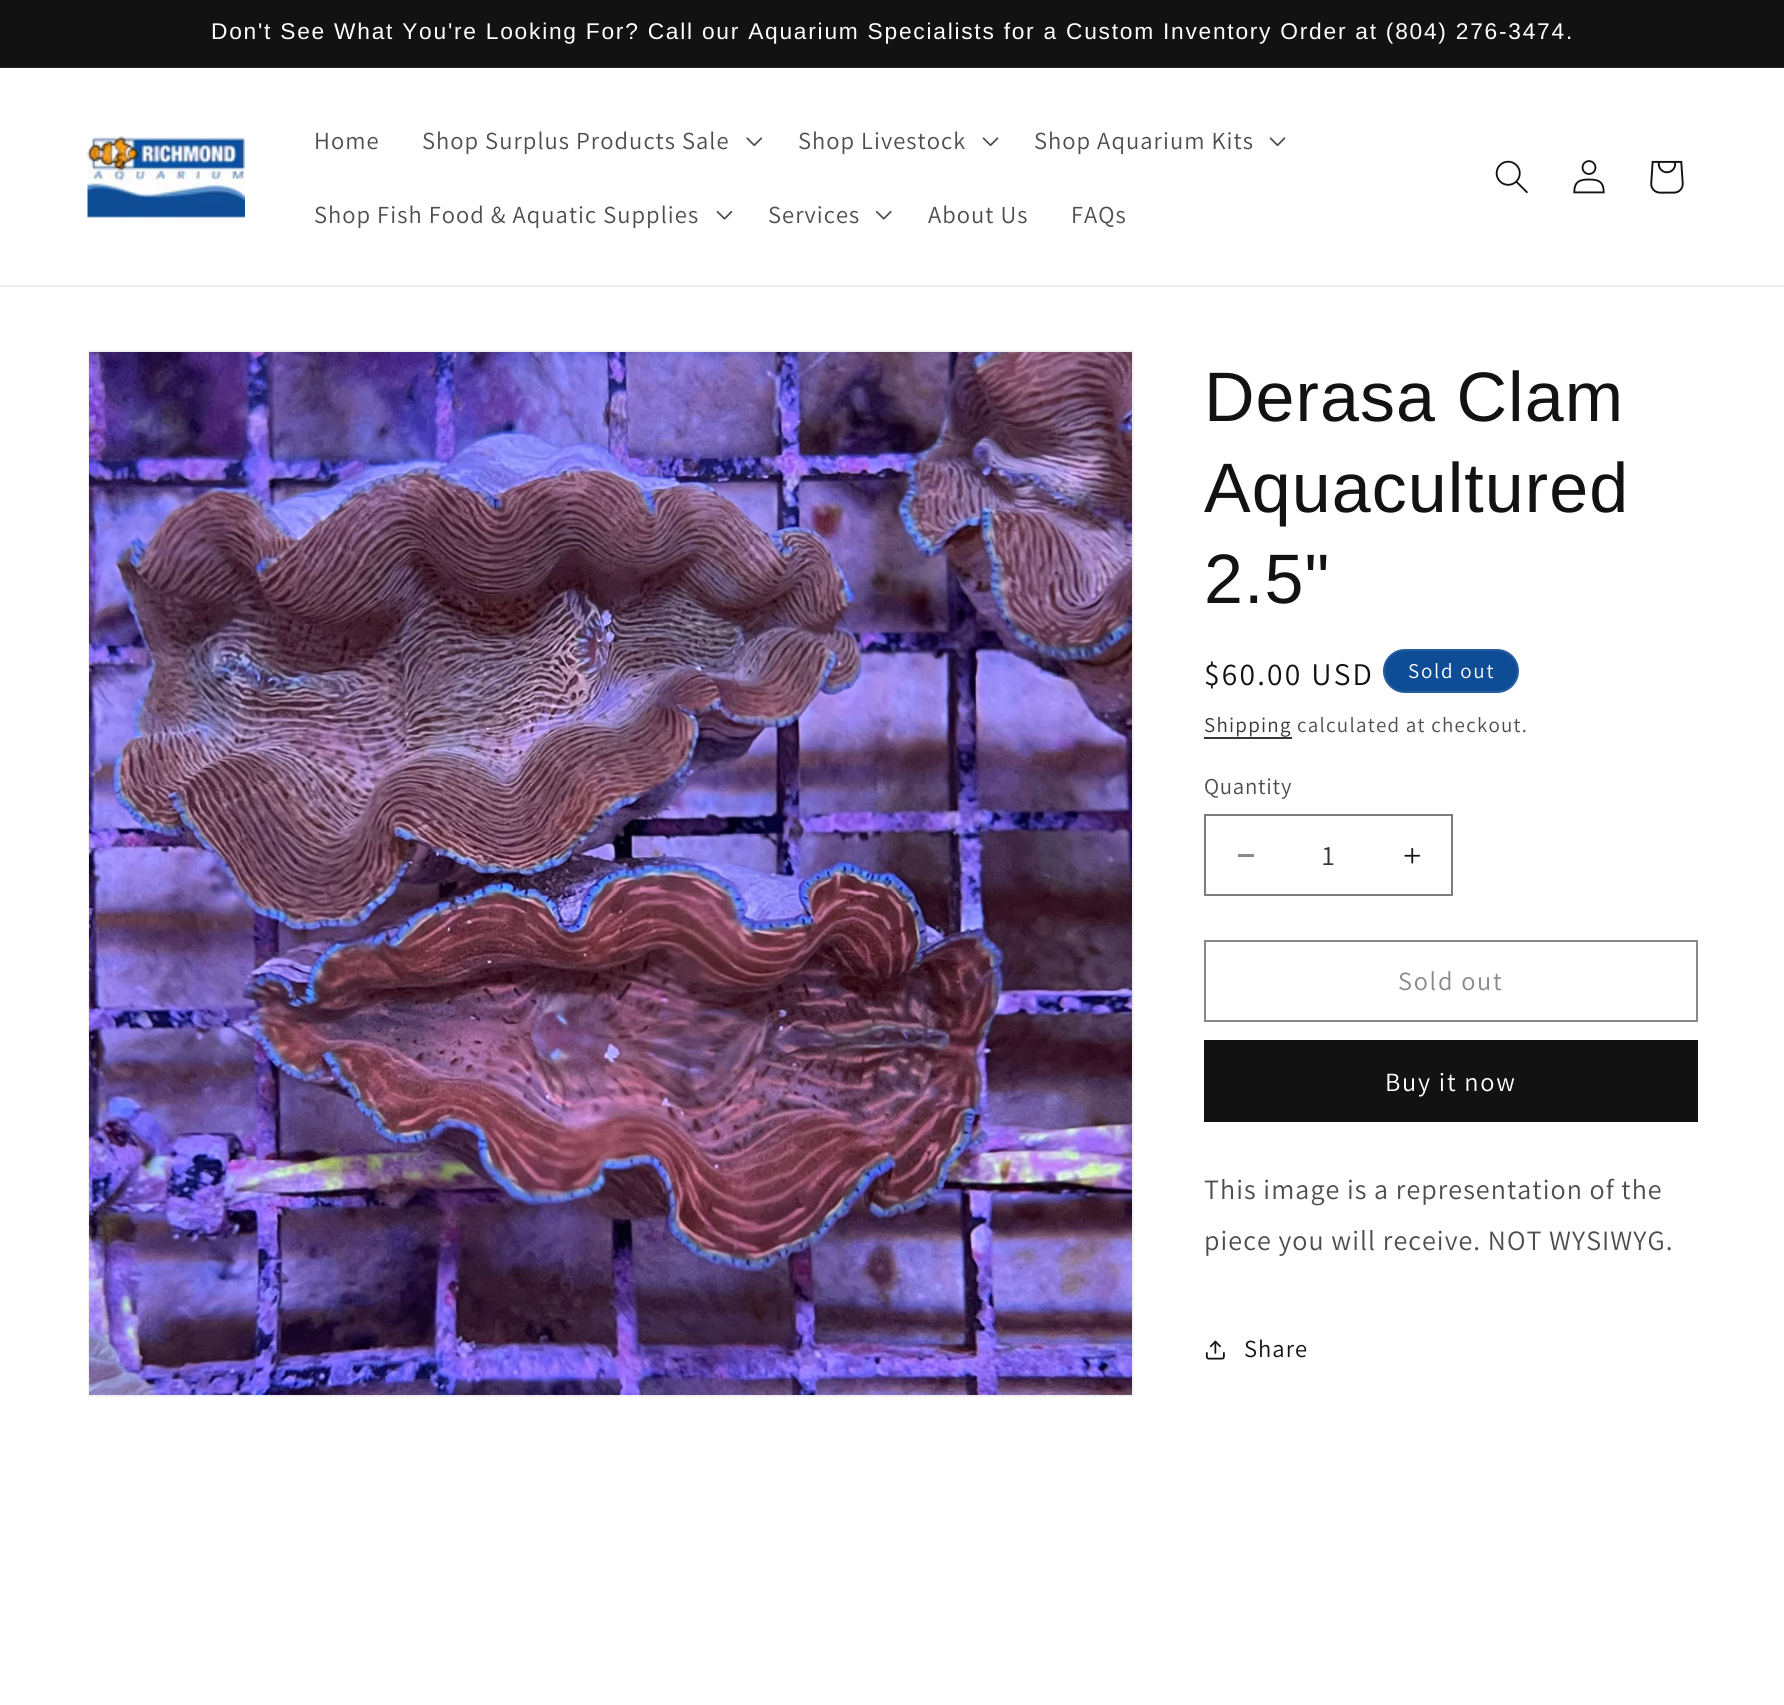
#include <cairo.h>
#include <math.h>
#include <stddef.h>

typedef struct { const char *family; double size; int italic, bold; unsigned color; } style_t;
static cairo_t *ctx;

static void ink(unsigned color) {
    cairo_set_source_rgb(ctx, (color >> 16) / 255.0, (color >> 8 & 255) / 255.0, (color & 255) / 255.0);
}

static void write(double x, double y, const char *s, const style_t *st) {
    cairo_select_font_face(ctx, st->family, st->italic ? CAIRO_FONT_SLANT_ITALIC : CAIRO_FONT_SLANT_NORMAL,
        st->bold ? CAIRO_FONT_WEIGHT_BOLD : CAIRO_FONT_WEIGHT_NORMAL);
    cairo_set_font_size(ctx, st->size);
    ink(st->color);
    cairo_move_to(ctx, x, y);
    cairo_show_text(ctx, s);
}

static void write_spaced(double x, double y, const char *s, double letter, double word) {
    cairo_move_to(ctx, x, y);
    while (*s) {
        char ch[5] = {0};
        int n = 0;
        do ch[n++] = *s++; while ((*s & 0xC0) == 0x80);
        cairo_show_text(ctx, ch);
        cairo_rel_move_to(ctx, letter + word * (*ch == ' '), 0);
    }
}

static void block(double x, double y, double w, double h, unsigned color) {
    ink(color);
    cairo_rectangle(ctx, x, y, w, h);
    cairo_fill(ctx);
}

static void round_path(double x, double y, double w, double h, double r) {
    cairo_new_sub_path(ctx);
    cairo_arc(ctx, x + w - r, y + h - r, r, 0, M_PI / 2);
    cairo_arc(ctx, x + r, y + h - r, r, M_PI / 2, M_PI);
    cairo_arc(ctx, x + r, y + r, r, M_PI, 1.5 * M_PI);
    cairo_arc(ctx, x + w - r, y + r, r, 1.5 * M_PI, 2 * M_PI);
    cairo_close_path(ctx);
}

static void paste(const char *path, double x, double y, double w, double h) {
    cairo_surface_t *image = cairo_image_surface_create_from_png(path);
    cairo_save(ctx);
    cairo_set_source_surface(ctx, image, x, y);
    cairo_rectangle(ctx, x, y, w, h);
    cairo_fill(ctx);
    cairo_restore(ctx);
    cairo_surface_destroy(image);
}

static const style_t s1 = {"Assistant", 28, 0, 0, 0x363636};

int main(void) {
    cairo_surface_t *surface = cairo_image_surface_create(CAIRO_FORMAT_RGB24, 1784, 1705);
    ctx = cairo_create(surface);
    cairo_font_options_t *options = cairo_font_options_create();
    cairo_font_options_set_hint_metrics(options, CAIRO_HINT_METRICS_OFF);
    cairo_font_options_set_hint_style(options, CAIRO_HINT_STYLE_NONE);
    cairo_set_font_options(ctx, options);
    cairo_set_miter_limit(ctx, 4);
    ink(0xffffff);
    cairo_paint(ctx);
    block(0, 0, 1784, 67, 0x121212);
    block(0, 67, 1784, 1, 0x252525);
    cairo_select_font_face(ctx, "Liberation Sans", CAIRO_FONT_SLANT_NORMAL, CAIRO_FONT_WEIGHT_NORMAL);
    cairo_set_font_size(ctx, 22.75);
    ink(0xffffff);
    write_spaced(211, 39, "Don't See What You're Looking For? Call our Aquarium Specialists for a Custom Inventory Order at (804) 276-3474.", 1.75, 0);
    block(0, 285, 1784, 2, 0xececec);
    paste("pic1.png", 87, 136, 158, 82);
    cairo_select_font_face(ctx, "Assistant", CAIRO_FONT_SLANT_NORMAL, CAIRO_FONT_WEIGHT_NORMAL);
    cairo_set_font_size(ctx, 24.5);
    ink(0x4d4d4d);
    write_spaced(314, 149, "Home", 1.05, 0);
    write_spaced(422, 149, "Shop Surplus Products Sale", 1.05, 0);
    paste("pic2.png", 746, 137, 17, 10);
    write_spaced(798, 149, "Shop Livestock", 1.05, 0);
    paste("pic3.png", 982, 137, 17, 10);
    write_spaced(1034, 149, "Shop Aquarium Kits", 1.05, 0);
    paste("pic3.png", 1269, 137, 17, 10);
    write_spaced(314, 223, "Shop Fish Food & Aquatic Supplies", 1.05, 0);
    paste("pic4.png", 716, 210, 17, 10);
    write_spaced(768, 223, "Services", 1.05, 0);
    paste("pic5.png", 875, 210, 17, 10);
    write_spaced(928, 223, "About Us", 1.05, 0);
    write_spaced(1071, 223, "FAQs", 1.05, 0);
    paste("pic6.png", 1495, 160, 33, 34);
    paste("pic7.png", 1573, 160, 32, 34);
    paste("pic8.png", 1650, 160, 34, 34);
    cairo_rectangle(ctx, 89, 351, 1044, 1045);
    ink(0xf3f3f3);
    cairo_stroke(ctx);
    paste("pic9.png", 89, 352, 1043, 1043);
    cairo_select_font_face(ctx, "Liberation Sans", CAIRO_FONT_SLANT_NORMAL, CAIRO_FONT_WEIGHT_NORMAL);
    cairo_set_font_size(ctx, 70);
    ink(0x121212);
    write_spaced(1204, 421, "Derasa Clam", 1.05, 0);
    write_spaced(1204, 512, "Aquacultured", 1.05, 0);
    write_spaced(1204, 603, "2.5\"", 1.05, 0);
    cairo_select_font_face(ctx, "Assistant", CAIRO_FONT_SLANT_NORMAL, CAIRO_FONT_WEIGHT_NORMAL);
    cairo_set_font_size(ctx, 31.5);
    write_spaced(1204, 685, "$60.00 USD", 2.25, 0);
    ink(0x0e4d96);
    round_path(1383, 649, 136, 44, 22);
    cairo_fill(ctx);
    round_path(1384, 650, 134, 42, 21);
    cairo_set_source_rgba(ctx, 1, 1, 1, 0.1);
    cairo_stroke(ctx);
    cairo_set_font_size(ctx, 21);
    ink(0xffffff);
    write_spaced(1408, 678, "Sold out", 1.75, 0);
    ink(0x363636);
    write_spaced(1204, 732, "Shipping", 1.25, 0);
    block(1204, 737, 88, 2, 0x363636);
    ink(0x4d4d4d);
    write_spaced(1297, 732, "calculated at checkout.", 1.25, 0);
    cairo_set_font_size(ctx, 22.75);
    write_spaced(1204, 794, "Quantity", 0.75, 0);
    block(1238, 854, 16, 3, 0x898989);
    paste("pic10.png", 1404, 847, 17, 17);
    cairo_rectangle(ctx, 1205, 815, 247, 80);
    ink(0x7d7d7d);
    cairo_stroke(ctx);
    write(1322, 865, "1", &s1);
    cairo_rectangle(ctx, 1205, 941, 492, 80);
    ink(0x898989);
    cairo_stroke(ctx);
    cairo_set_font_size(ctx, 26.25);
    write_spaced(1398, 990, "Sold out", 1.75, 0);
    block(1204, 1040, 494, 82, 0x121212);
    ink(0xffffff);
    write_spaced(1385, 1091, "Buy it now", 1.75, 0);
    cairo_set_font_size(ctx, 28);
    ink(0x4d4d4d);
    write_spaced(1204, 1199, "This image is a representation of the", 1.05, 0);
    write_spaced(1204, 1250, "piece you will receive. NOT WYSIWYG.", 1.05, 0);
    paste("pic11.png", 1205, 1340, 20, 20);
    cairo_set_font_size(ctx, 24.5);
    ink(0x121212);
    write_spaced(1244, 1357, "Share", 1.05, 0);
    cairo_surface_write_to_png(surface, "screenshot.png");
    cairo_font_options_destroy(options);
    cairo_destroy(ctx);
    cairo_surface_destroy(surface);
    return 0;
}
